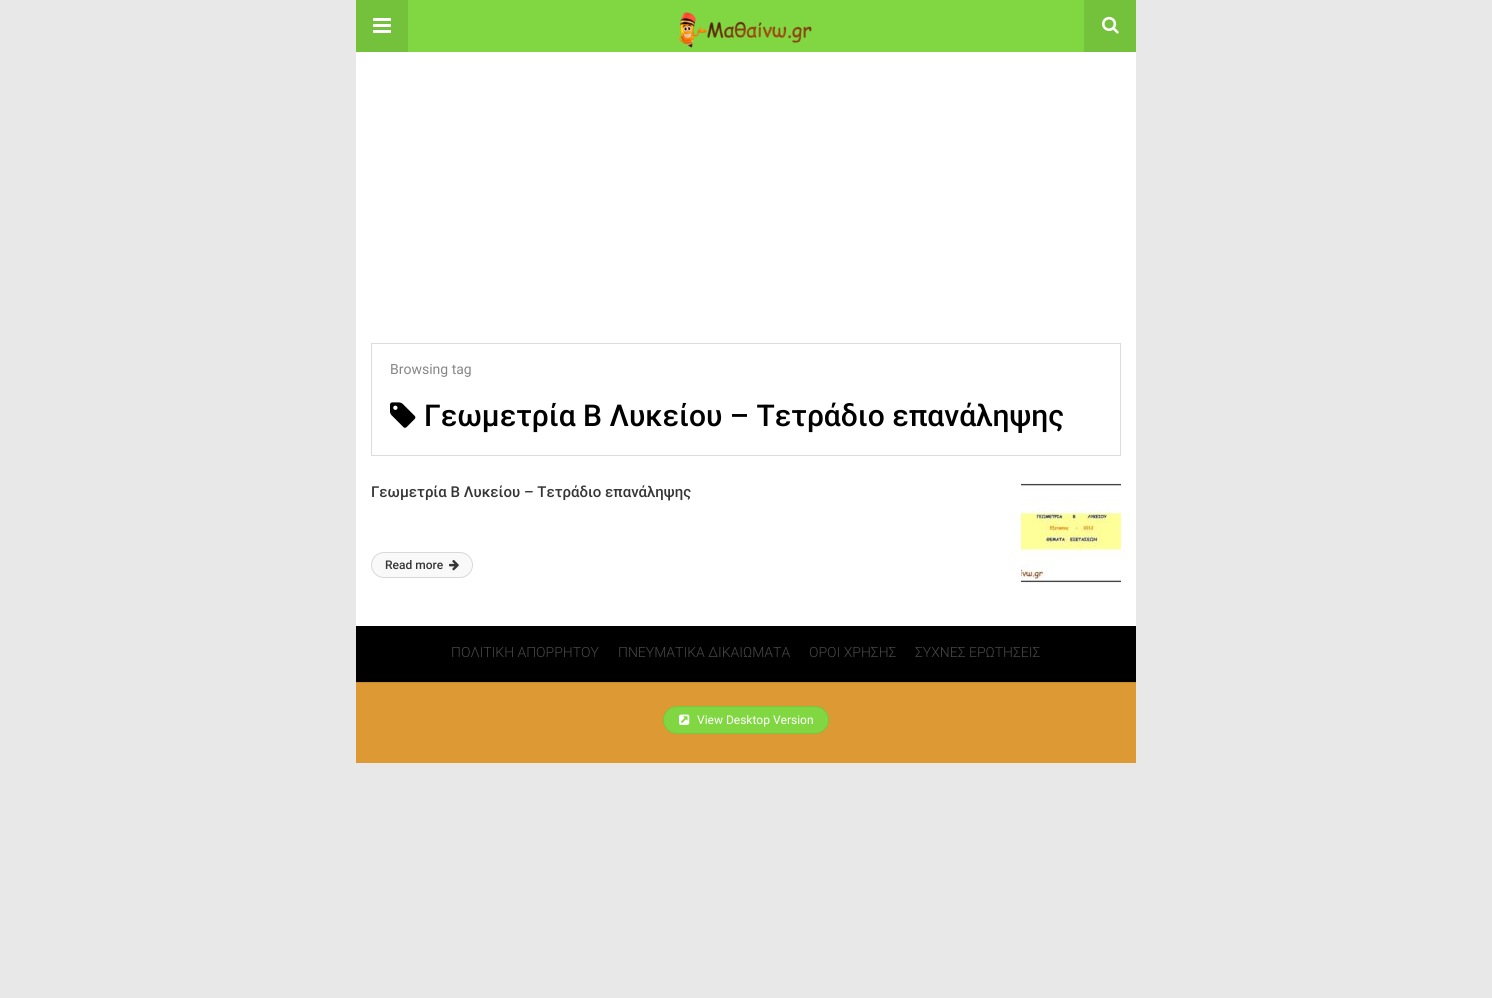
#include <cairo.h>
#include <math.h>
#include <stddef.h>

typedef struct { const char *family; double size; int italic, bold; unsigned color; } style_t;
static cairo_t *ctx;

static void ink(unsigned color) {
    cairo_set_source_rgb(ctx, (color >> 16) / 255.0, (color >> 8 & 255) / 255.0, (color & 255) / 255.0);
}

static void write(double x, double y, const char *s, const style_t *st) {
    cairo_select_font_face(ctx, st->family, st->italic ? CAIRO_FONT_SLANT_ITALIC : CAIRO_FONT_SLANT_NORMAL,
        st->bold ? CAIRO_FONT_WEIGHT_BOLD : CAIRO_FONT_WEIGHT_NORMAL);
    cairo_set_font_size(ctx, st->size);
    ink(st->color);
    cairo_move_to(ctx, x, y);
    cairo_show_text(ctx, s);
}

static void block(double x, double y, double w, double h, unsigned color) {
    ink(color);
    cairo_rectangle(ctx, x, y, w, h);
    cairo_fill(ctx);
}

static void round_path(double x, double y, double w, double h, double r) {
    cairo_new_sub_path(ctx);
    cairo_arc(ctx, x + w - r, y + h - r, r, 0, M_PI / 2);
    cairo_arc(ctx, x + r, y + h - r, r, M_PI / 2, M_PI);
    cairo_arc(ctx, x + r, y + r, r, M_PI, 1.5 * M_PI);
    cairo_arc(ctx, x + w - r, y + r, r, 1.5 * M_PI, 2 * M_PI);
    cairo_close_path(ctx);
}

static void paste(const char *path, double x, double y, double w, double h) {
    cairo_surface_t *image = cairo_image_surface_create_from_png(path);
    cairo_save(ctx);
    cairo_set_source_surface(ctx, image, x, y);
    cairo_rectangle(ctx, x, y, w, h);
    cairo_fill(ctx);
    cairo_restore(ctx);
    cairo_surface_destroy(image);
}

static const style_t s1 = {"Roboto", 14, 0, 0, 0x868686};
static const style_t s2 = {"Roboto Medium", 30, 0, 0, 0x000000};
static const style_t s3 = {"Roboto Medium", 15, 0, 0, 0x363636};
static const style_t s4 = {"Roboto Medium", 12, 0, 0, 0x363636};
static const style_t s5 = {"Roboto Light", 14, 0, 0, 0x494949};
static const style_t s6 = {"Roboto", 12, 0, 0, 0xffffff};

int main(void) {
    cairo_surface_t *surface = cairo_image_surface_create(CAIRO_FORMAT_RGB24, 1492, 998);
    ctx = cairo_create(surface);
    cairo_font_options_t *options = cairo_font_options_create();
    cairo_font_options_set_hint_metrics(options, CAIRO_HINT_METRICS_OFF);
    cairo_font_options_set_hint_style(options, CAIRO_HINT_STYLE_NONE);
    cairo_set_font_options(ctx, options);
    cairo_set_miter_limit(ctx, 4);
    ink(0xe8e8e8);
    cairo_paint(ctx);
    block(356, 52, 780, 574, 0xffffff);
    block(408, 0, 676, 52, 0x81d742);
    block(356, 0, 52, 52, 0x74c23b);
    paste("pic1.png", 373, 18, 18, 15);
    paste("pic2.png", 678, 12, 134, 36);
    block(1084, 0, 52, 52, 0x74c23b);
    paste("pic3.png", 1102, 16, 17, 18);
    cairo_rectangle(ctx, 371.5, 343.5, 749, 112);
    ink(0xdcdcdc);
    cairo_set_line_width(ctx, 1);
    cairo_stroke(ctx);
    write(390, 374, "Browsing tag", &s1);
    paste("pic4.png", 390, 402, 26, 26);
    write(424, 426, "Γεωμετρία Β Λυκείου – Τετράδιο επανάληψης", &s2);
    write(371, 497, "Γεωμετρία Β Λυκείου – Τετράδιο επανάληψης", &s3);
    paste("pic5.png", 1021, 483, 100, 100);
    ink(0xf9f9f9);
    round_path(371.5, 552.5, 101, 25, 12.5);
    cairo_fill_preserve(ctx);
    ink(0xd8d8d8);
    cairo_stroke(ctx);
    write(385, 569, "Read more", &s4);
    paste("pic6.png", 449, 560, 10, 11);
    block(356, 683, 780, 80, 0xdd9933);
    block(356, 626, 780, 56, 0x000000);
    write(451, 657, "ΠΟΛΙΤΙΚΗ ΑΠΟΡΡΗΤΟΥ", &s5);
    write(618, 657, "ΠΝΕΥΜΑΤΙΚΑ ΔΙΚΑΙΩΜΑΤΑ", &s5);
    write(809, 657, "ΟΡΟΙ ΧΡΗΣΗΣ", &s5);
    write(915, 657, "ΣΥΧΝΕΣ ΕΡΩΤΗΣΕΙΣ", &s5);
    block(356, 682, 780, 1, 0xc78a2e);
    ink(0x81d742);
    round_path(663, 706, 166, 28, 14);
    cairo_fill(ctx);
    round_path(663.5, 706.5, 165, 27, 13.5);
    cairo_set_source_rgba(ctx, 0, 0, 0, 0.08);
    cairo_stroke(ctx);
    paste("pic7.png", 679, 714, 11, 11);
    write(697, 724, "View Desktop Version", &s6);
    cairo_surface_write_to_png(surface, "screenshot.png");
    cairo_font_options_destroy(options);
    cairo_destroy(ctx);
    cairo_surface_destroy(surface);
    return 0;
}
